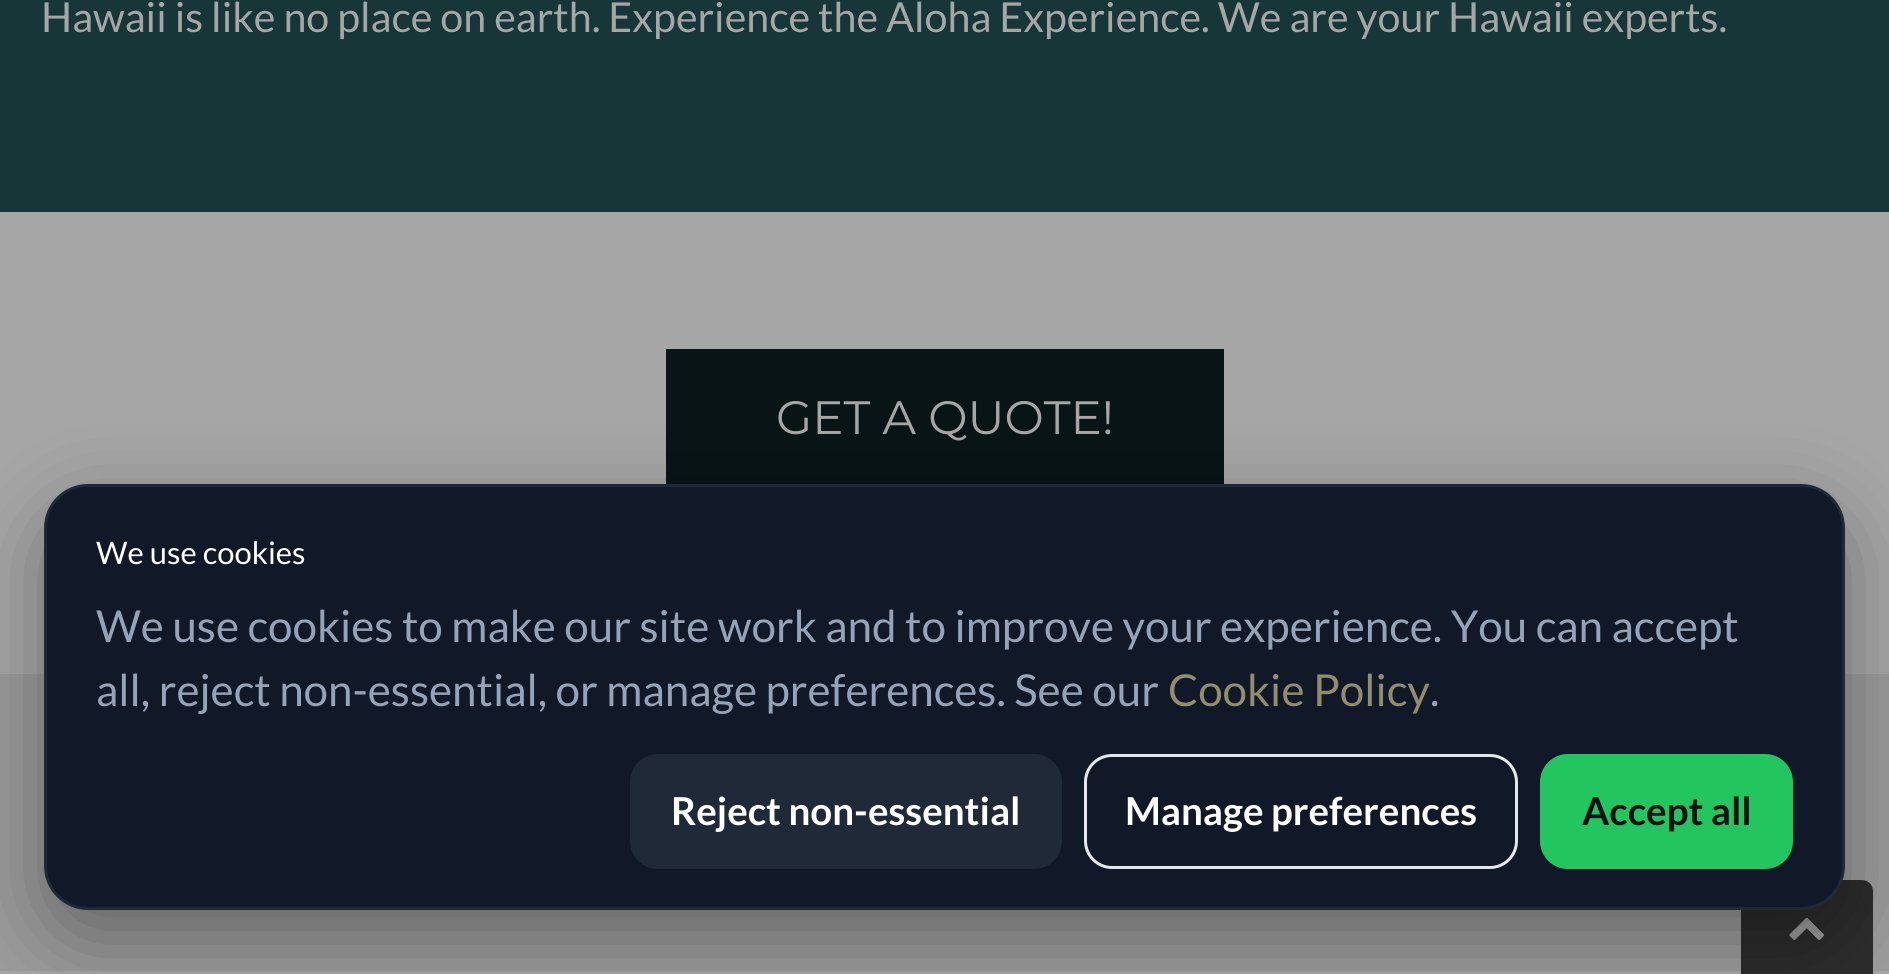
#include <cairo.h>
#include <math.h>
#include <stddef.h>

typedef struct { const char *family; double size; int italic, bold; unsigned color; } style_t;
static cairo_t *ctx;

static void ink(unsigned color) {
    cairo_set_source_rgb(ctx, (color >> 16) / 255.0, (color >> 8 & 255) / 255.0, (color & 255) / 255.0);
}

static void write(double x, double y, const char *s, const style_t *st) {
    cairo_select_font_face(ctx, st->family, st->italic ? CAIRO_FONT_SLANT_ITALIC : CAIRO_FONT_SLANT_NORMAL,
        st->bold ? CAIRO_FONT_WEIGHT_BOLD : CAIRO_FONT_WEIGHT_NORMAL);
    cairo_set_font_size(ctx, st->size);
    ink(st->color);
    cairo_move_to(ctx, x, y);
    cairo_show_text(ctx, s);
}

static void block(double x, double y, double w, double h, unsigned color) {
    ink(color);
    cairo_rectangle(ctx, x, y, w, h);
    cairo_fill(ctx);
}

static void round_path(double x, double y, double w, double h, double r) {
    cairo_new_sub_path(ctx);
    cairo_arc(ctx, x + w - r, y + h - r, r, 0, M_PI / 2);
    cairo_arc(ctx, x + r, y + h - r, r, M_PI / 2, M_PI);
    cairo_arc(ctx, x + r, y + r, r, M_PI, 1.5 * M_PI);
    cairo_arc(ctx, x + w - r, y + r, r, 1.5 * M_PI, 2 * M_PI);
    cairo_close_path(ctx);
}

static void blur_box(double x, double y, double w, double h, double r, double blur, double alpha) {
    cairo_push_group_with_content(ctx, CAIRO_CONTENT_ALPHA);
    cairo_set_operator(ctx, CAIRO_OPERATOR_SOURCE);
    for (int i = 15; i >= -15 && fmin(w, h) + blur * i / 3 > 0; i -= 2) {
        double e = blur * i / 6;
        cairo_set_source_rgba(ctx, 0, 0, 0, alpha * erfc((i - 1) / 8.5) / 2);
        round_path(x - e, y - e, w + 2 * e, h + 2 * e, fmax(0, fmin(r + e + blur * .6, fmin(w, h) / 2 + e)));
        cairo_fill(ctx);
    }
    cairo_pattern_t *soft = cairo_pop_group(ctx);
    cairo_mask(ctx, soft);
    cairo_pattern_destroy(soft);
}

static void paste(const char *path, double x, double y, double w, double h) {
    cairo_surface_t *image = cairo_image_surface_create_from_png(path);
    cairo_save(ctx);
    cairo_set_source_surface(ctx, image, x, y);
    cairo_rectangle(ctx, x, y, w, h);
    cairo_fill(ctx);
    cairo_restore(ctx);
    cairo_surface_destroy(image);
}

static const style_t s1 = {"Lato", 41.25, 0, 0, 0xa6a6a6};
static const style_t s2 = {"Montserrat", 46.75, 0, 0, 0xa6a6a6};
static const style_t s3 = {"Lato", 31, 0, 0, 0xffffff};
static const style_t s4 = {"Lato", 44, 0, 0, 0x94a3b8};
static const style_t s5 = {"Lato", 44, 0, 0, 0x908e6d};
static const style_t s6 = {"Lato", 38.5, 0, 1, 0xffffff};
static const style_t s7 = {"Lato", 38.5, 0, 1, 0x0b1114};

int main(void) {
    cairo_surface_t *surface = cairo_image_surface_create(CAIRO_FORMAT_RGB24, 1889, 974);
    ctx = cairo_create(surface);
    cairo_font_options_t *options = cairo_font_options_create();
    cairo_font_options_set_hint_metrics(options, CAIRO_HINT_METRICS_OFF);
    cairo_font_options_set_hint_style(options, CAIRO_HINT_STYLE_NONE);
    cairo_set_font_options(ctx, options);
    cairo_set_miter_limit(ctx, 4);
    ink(0xa6a6a6);
    cairo_paint(ctx);
    block(0, 0, 1889, 212, 0x163638);
    write(41, 32, "Hawaii is like no place on earth. Experience the Aloha Experience. We are your Hawaii experts.", &s1);
    block(666, 349, 558, 135, 0x081416);
    write(776, 434, "GET A QUOTE!", &s2);
    block(0, 674, 1889, 297, 0x9b9b9b);
    cairo_set_source_rgba(ctx, 0.129, 0.129, 0.129, 0.9);
    cairo_new_path(ctx);
    cairo_move_to(ctx, 1752, 880);
    cairo_line_to(ctx, 1862, 880);
    cairo_curve_to(ctx, 1868, 880, 1873, 885, 1873, 891);
    cairo_line_to(ctx, 1873, 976);
    cairo_line_to(ctx, 1741, 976);
    cairo_line_to(ctx, 1741, 891);
    cairo_curve_to(ctx, 1741, 885, 1746, 880, 1752, 880);
    cairo_close_path(ctx);
    cairo_fill(ctx);
    paste("pic1.png", 1789, 917, 35, 23);
    ink(0x000000);
    blur_box(44, 512, 1801, 426, 44, 41, 0.35);
    ink(0x111827);
    round_path(45.5, 485.5, 1798, 423, 42.5);
    cairo_fill_preserve(ctx);
    ink(0x1f2937);
    cairo_set_line_width(ctx, 3);
    cairo_stroke(ctx);
    write(96, 564, "We use cookies", &s3);
    write(96, 642, "We use cookies to make our site work and to improve your experience. You can accept", &s4);
    write(96, 706, "all, reject non-essential, or manage preferences. See our", &s4);
    write(1168, 706, "Cookie Policy", &s5);
    write(1430, 706, ".", &s4);
    ink(0x1f2937);
    round_path(630, 754, 432, 115, 28);
    cairo_fill(ctx);
    write(671, 825, "Reject non-essential", &s6);
    round_path(1085.5, 755.5, 431, 112, 26.5);
    ink(0xe5e7eb);
    cairo_stroke(ctx);
    write(1125, 825, "Manage preferences", &s6);
    ink(0x22c55e);
    round_path(1540, 754, 253, 115, 28);
    cairo_fill(ctx);
    write(1582, 825, "Accept all", &s7);
    cairo_surface_write_to_png(surface, "screenshot.png");
    cairo_font_options_destroy(options);
    cairo_destroy(ctx);
    cairo_surface_destroy(surface);
    return 0;
}
